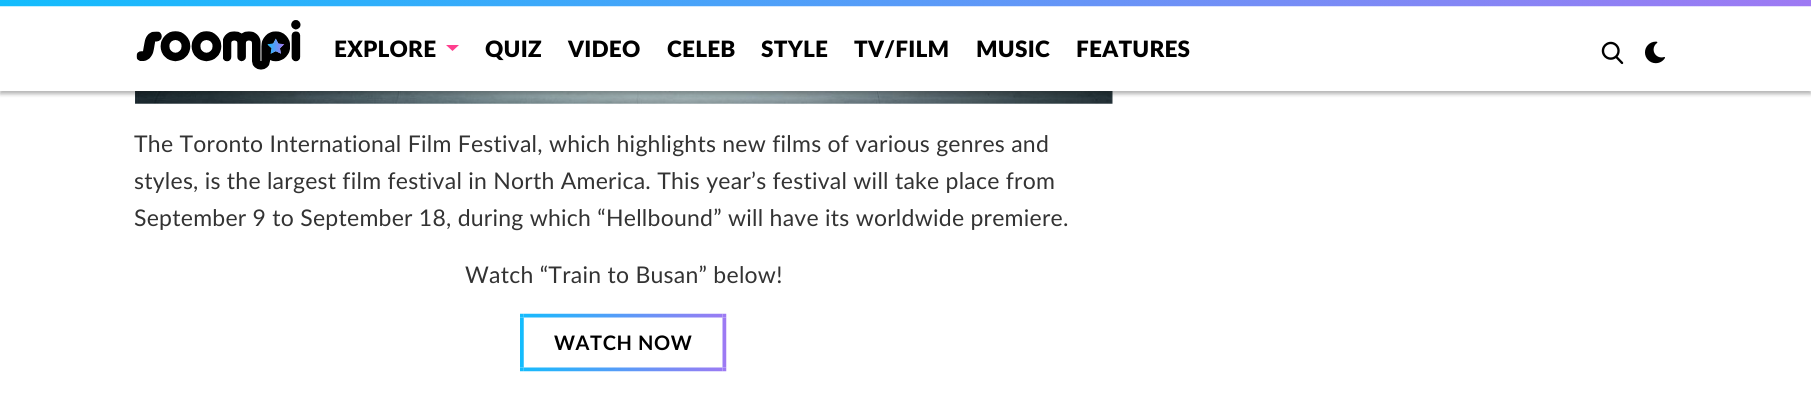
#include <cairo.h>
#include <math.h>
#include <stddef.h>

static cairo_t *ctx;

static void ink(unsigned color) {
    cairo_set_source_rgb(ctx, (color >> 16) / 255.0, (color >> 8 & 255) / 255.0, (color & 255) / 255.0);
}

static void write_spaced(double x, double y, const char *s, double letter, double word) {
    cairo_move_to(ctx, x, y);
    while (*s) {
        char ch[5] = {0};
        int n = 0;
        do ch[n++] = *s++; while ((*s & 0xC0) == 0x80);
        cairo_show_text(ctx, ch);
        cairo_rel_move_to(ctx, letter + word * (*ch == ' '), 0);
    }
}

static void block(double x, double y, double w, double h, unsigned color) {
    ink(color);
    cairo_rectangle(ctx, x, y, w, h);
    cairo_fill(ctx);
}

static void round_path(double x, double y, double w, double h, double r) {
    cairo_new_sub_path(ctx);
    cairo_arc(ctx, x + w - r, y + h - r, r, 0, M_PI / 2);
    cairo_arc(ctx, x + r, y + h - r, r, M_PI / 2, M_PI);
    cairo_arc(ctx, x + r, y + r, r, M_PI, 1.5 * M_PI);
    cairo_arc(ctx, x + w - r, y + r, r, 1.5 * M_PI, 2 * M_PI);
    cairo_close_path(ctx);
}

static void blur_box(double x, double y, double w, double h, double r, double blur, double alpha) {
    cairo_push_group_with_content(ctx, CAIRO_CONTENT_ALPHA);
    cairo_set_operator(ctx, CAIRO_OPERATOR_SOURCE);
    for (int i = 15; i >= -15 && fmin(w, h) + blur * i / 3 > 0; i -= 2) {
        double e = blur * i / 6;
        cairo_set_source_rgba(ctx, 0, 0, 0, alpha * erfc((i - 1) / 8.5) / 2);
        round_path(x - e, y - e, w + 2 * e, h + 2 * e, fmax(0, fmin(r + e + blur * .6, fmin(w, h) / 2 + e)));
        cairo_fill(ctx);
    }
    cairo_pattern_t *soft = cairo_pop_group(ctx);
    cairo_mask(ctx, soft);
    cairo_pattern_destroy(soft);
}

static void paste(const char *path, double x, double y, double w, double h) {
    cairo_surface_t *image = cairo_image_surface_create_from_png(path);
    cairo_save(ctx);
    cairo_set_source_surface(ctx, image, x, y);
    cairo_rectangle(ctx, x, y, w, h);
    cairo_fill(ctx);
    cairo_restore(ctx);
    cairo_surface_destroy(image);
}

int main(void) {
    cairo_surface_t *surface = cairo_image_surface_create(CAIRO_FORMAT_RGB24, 1811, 405);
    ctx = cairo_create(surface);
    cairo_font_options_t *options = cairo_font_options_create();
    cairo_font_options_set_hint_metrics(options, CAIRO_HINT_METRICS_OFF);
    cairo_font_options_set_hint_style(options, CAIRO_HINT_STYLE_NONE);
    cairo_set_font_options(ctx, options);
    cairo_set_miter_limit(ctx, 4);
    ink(0xffffff);
    cairo_paint(ctx);
    paste("pic5.png", 135, 91, 978, 13);
    ink(0x000000);
    blur_box(0, 3, 1811, 91, 0, 2, 0.3);
    block(0, 6, 1811, 85, 0xffffff);
    paste("pic1.png", 0, 0, 1811, 7);
    paste("pic2.png", 136, 20, 165, 50);
    cairo_select_font_face(ctx, "Lato Black", CAIRO_FONT_SLANT_NORMAL, CAIRO_FONT_WEIGHT_NORMAL);
    cairo_set_font_size(ctx, 22.5);
    ink(0x000000);
    write_spaced(334, 57, "EXPLORE", 0.25, 0);
    ink(0xff3e8e);
    cairo_new_path(ctx);
    cairo_move_to(ctx, 446, 45);
    cairo_line_to(ctx, 459, 45);
    cairo_line_to(ctx, 452.5, 51);
    cairo_close_path(ctx);
    cairo_fill(ctx);
    ink(0x000000);
    write_spaced(485, 57, "QUIZ", 0.25, 0);
    write_spaced(568, 57, "VIDEO", 0.25, 0);
    write_spaced(667, 57, "CELEB", 0.25, 0);
    write_spaced(761, 57, "STYLE", 0.25, 0);
    write_spaced(854, 57, "TV/FILM", 0.25, 0);
    write_spaced(976, 57, "MUSIC", 0.25, 0);
    write_spaced(1076, 57, "FEATURES", 0.25, 0);
    paste("pic3.png", 1601, 41, 23, 24);
    paste("pic4.png", 1645, 41, 20, 23);
    cairo_select_font_face(ctx, "Lato", CAIRO_FONT_SLANT_NORMAL, CAIRO_FONT_WEIGHT_NORMAL);
    cairo_set_font_size(ctx, 23);
    ink(0x333333);
    write_spaced(134, 152, "The Toronto International Film Festival, which highlights new films of various genres and", 0.25, 0);
    write_spaced(134, 189, "styles, is the largest film festival in North America. This year’s festival will take place from", 0.25, 0);
    write_spaced(134, 226, "September 9 to September 18, during which “Hellbound” will have its worldwide premiere.", 0.25, 0);
    write_spaced(465, 283, "Watch “Train to Busan” below!", 0.25, 0);
    paste("pic6.png", 520, 313, 207, 59);
    cairo_select_font_face(ctx, "Lato", CAIRO_FONT_SLANT_NORMAL, CAIRO_FONT_WEIGHT_BOLD);
    cairo_set_font_size(ctx, 20);
    ink(0x000000);
    write_spaced(554, 350, "WATCH NOW", 0.6, 0);
    cairo_surface_write_to_png(surface, "screenshot.png");
    cairo_font_options_destroy(options);
    cairo_destroy(ctx);
    cairo_surface_destroy(surface);
    return 0;
}
